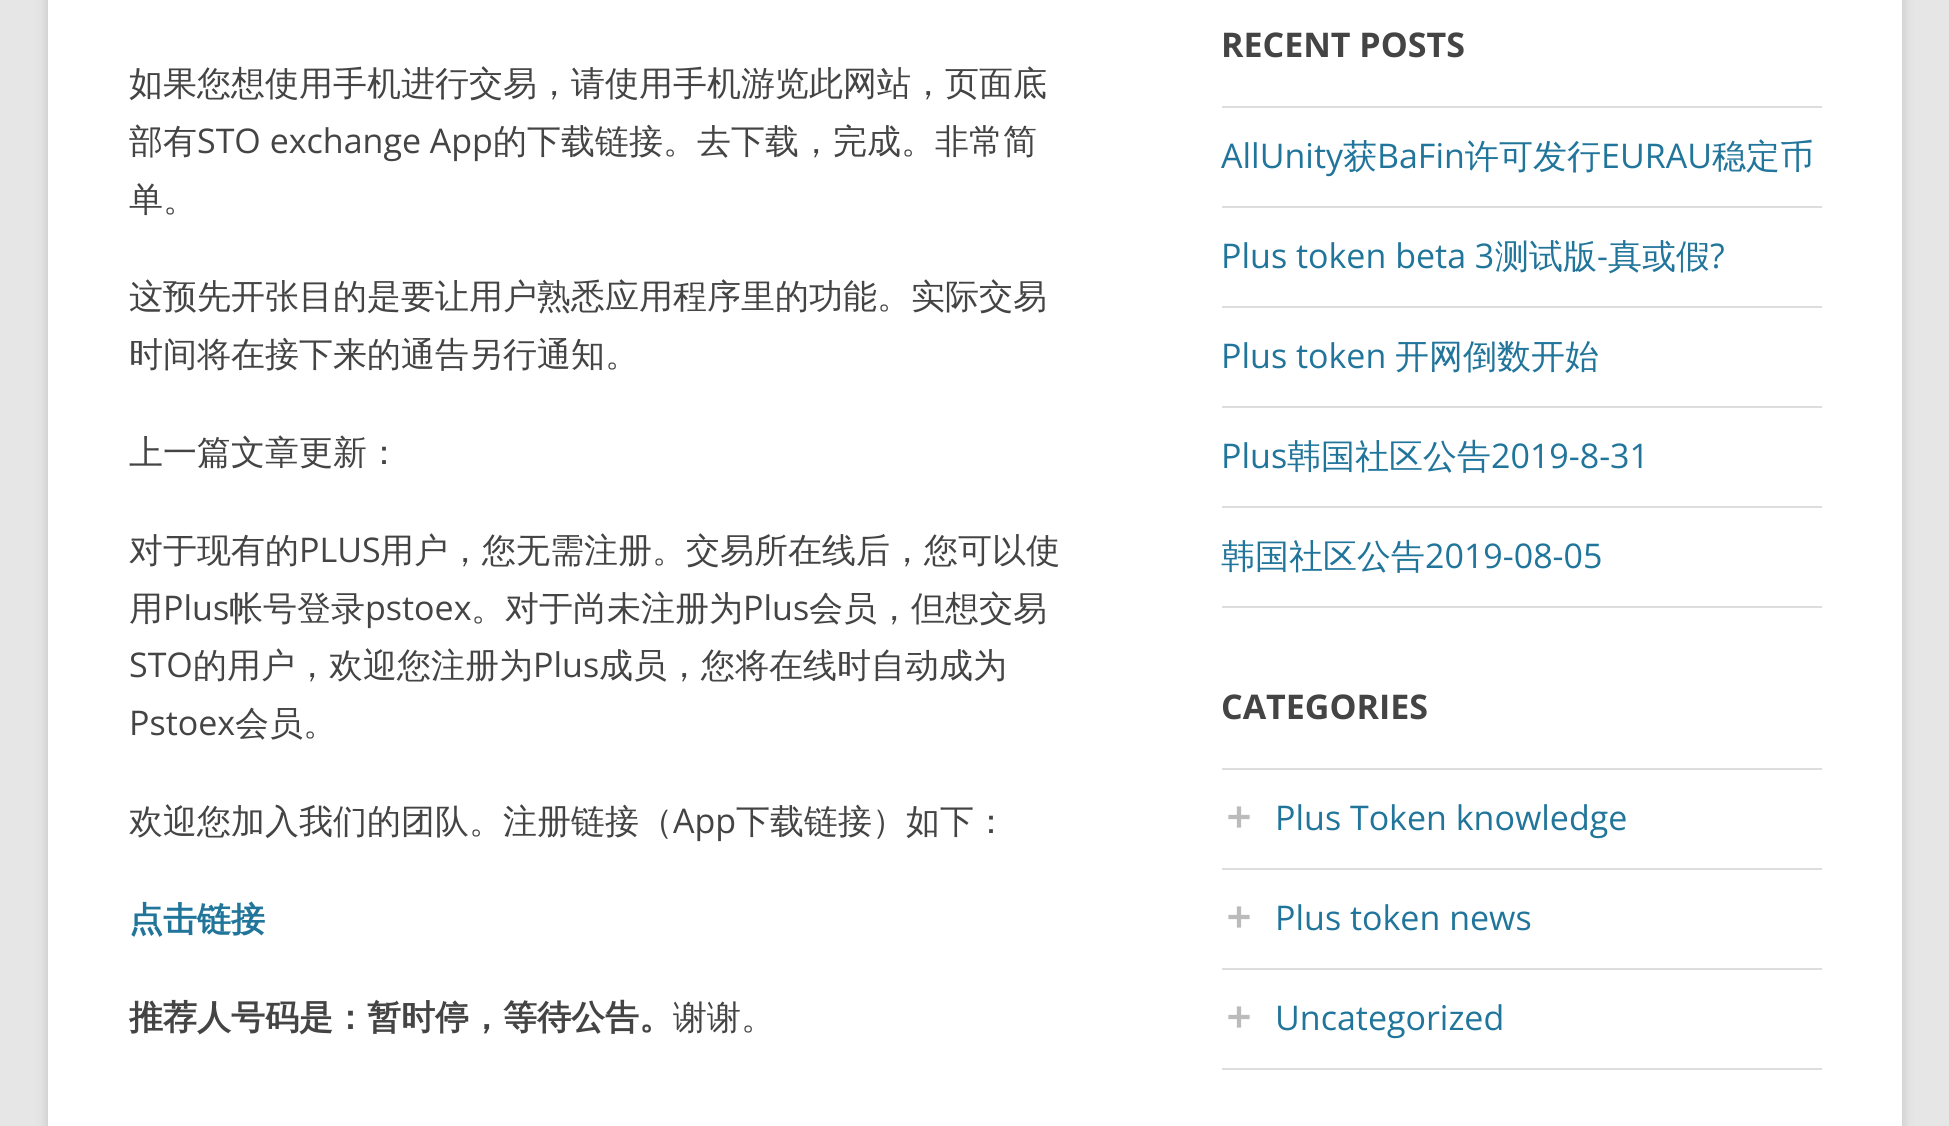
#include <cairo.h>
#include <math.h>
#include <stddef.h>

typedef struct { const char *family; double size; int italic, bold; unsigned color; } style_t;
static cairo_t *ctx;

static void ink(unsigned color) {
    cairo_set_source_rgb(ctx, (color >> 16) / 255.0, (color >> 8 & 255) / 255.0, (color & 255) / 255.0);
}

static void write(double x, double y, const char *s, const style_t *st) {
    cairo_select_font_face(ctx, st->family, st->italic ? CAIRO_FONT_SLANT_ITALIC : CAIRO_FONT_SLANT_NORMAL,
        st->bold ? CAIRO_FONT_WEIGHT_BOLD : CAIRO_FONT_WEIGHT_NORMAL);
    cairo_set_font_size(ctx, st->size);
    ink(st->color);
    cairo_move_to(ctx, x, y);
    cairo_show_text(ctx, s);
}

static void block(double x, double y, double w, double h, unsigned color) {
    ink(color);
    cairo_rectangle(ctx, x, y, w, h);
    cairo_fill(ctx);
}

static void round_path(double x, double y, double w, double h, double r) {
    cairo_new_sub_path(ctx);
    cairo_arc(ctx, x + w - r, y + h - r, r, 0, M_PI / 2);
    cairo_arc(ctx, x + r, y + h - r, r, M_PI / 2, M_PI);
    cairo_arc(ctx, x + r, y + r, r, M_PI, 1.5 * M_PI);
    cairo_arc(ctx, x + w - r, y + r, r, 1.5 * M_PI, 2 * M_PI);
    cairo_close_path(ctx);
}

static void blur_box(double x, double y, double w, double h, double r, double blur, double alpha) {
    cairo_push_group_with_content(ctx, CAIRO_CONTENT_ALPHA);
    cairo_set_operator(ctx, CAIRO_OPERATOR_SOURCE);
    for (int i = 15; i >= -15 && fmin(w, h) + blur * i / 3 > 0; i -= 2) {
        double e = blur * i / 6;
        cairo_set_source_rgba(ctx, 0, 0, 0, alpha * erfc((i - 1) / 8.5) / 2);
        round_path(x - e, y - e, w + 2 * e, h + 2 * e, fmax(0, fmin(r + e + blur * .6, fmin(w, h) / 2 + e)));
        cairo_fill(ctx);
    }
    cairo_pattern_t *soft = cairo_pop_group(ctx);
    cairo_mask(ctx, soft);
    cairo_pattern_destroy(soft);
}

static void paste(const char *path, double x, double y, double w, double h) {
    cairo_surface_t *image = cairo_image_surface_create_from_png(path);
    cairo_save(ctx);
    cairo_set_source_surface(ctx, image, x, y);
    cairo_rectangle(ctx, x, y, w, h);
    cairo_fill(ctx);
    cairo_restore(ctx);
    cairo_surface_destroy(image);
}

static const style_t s1 = {"WenQuanYi Zen Hei Medium", 34, 0, 0, 0x444444};
static const style_t s2 = {"Open Sans", 34, 0, 0, 0x444444};
static const style_t s3 = {"WenQuanYi Zen Hei", 34, 0, 1, 0x21759b};
static const style_t s4 = {"WenQuanYi Zen Hei", 34, 0, 1, 0x444444};
static const style_t s5 = {"Open Sans", 34, 0, 1, 0x444444};
static const style_t s6 = {"Open Sans", 34, 0, 0, 0x21759b};
static const style_t s7 = {"WenQuanYi Zen Hei Medium", 34, 0, 0, 0x21759b};

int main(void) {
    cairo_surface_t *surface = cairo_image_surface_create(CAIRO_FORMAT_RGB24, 1949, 1126);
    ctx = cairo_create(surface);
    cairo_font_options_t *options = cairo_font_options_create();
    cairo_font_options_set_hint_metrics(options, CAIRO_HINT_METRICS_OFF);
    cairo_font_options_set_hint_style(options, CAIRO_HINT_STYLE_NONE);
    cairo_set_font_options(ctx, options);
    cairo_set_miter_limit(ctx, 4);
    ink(0xe6e6e6);
    cairo_paint(ctx);
    ink(0x646464);
    blur_box(48, -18, 1854, 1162, 0, 6, 0.3);
    block(48, 0, 1854, 1126, 0xffffff);
    write(129, 95, "如果您想使用手机进行交易，请使用手机游览此网站，页面底", &s1);
    write(129, 153, "部有", &s1);
    write(197, 153, "STO exchange App", &s2);
    write(493, 153, "的下载链接。去下载，完成。非常简", &s1);
    write(129, 211, "单。", &s1);
    write(129, 308, "这预先开张目的是要让用户熟悉应用程序里的功能。实际交易", &s1);
    write(129, 366, "时间将在接下来的通告另行通知。", &s1);
    write(129, 464, "上一篇文章更新：", &s1);
    write(129, 562, "对于现有的", &s1);
    write(299, 562, "PLUS", &s2);
    write(380, 562, "用户，您无需注册。交易所在线后，您可以使", &s1);
    write(129, 620, "用", &s1);
    write(163, 620, "Plus", &s2);
    write(229, 620, "帐号登录", &s1);
    write(365, 620, "pstoex", &s2);
    write(471, 620, "。对于尚未注册为", &s1);
    write(743, 620, "Plus", &s2);
    write(809, 620, "会员，但想交易", &s1);
    write(129, 677, "STO", &s2);
    write(193, 677, "的用户，欢迎您注册为", &s1);
    write(533, 677, "Plus", &s2);
    write(599, 677, "成员，您将在线时自动成为", &s1);
    write(129, 735, "Pstoex", &s2);
    write(235, 735, "会员。", &s1);
    write(129, 833, "欢迎您加入我们的团队。注册链接（", &s1);
    write(673, 833, "App", &s2);
    write(736, 833, "下载链接）如下：", &s1);
    write(129, 931, "点击链接", &s3);
    write(129, 1029, "推荐人号码是：暂时停，等待公告。", &s4);
    write(673, 1029, "谢谢。", &s1);
    write(1221, 57, "RECENT POSTS", &s5);
    block(1222, 106, 600, 2, 0xdddddd);
    block(1222, 206, 600, 2, 0xdddddd);
    write(1221, 168, "AllUnity", &s6);
    write(1343, 168, "获", &s7);
    write(1377, 168, "BaFin", &s6);
    write(1465, 168, "许可发行", &s7);
    write(1601, 168, "EURAU", &s6);
    write(1712, 168, "稳定币", &s7);
    block(1222, 306, 600, 2, 0xdddddd);
    write(1221, 268, "Plus token beta 3", &s6);
    write(1495, 268, "测试版", &s7);
    write(1597, 268, "-", &s6);
    write(1608, 268, "真或假", &s7);
    write(1710, 268, "?", &s6);
    block(1222, 406, 600, 2, 0xdddddd);
    write(1221, 368, "Plus token", &s6);
    write(1395, 368, "开网倒数开始", &s7);
    block(1222, 506, 600, 2, 0xdddddd);
    write(1221, 468, "Plus", &s6);
    write(1287, 468, "韩国社区公告", &s7);
    write(1491, 468, "2019-8-31", &s6);
    block(1222, 606, 600, 2, 0xdddddd);
    write(1221, 568, "韩国社区公告", &s7);
    write(1425, 568, "2019-08-05", &s6);
    write(1221, 719, "CATEGORIES", &s5);
    block(1222, 1068, 600, 2, 0xdddddd);
    block(1222, 768, 600, 2, 0xdddddd);
    paste("pic1.png", 1228, 806, 22, 22);
    write(1275, 830, "Plus Token knowledge", &s6);
    block(1222, 868, 600, 2, 0xdddddd);
    paste("pic1.png", 1228, 906, 22, 22);
    write(1275, 930, "Plus token news", &s6);
    block(1222, 968, 600, 2, 0xdddddd);
    paste("pic1.png", 1228, 1006, 22, 22);
    write(1275, 1030, "Uncategorized", &s6);
    cairo_surface_write_to_png(surface, "screenshot.png");
    cairo_font_options_destroy(options);
    cairo_destroy(ctx);
    cairo_surface_destroy(surface);
    return 0;
}
